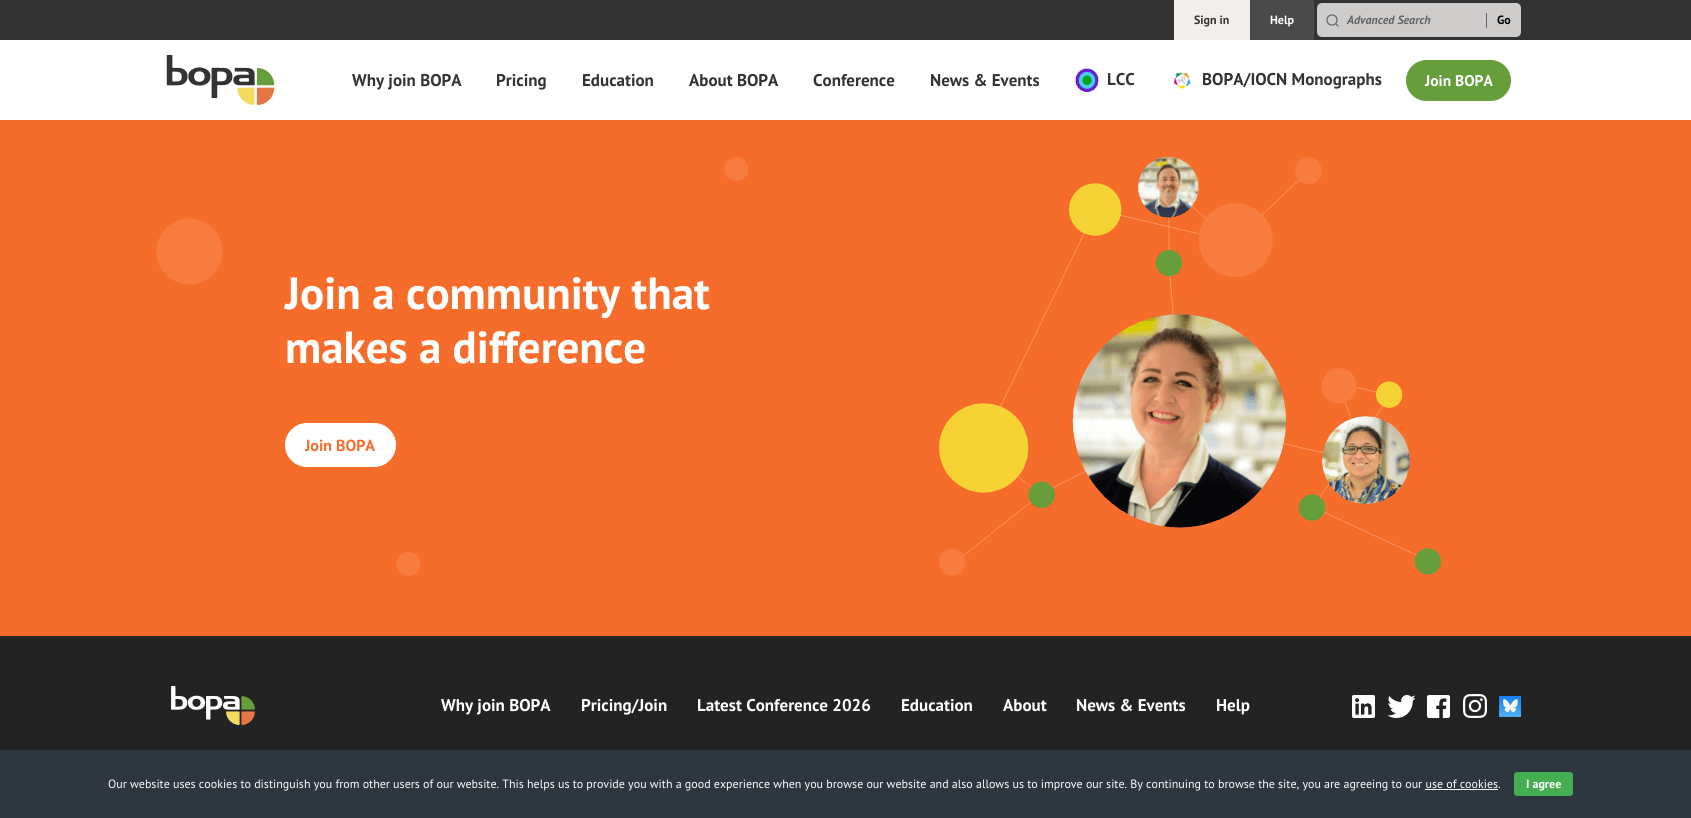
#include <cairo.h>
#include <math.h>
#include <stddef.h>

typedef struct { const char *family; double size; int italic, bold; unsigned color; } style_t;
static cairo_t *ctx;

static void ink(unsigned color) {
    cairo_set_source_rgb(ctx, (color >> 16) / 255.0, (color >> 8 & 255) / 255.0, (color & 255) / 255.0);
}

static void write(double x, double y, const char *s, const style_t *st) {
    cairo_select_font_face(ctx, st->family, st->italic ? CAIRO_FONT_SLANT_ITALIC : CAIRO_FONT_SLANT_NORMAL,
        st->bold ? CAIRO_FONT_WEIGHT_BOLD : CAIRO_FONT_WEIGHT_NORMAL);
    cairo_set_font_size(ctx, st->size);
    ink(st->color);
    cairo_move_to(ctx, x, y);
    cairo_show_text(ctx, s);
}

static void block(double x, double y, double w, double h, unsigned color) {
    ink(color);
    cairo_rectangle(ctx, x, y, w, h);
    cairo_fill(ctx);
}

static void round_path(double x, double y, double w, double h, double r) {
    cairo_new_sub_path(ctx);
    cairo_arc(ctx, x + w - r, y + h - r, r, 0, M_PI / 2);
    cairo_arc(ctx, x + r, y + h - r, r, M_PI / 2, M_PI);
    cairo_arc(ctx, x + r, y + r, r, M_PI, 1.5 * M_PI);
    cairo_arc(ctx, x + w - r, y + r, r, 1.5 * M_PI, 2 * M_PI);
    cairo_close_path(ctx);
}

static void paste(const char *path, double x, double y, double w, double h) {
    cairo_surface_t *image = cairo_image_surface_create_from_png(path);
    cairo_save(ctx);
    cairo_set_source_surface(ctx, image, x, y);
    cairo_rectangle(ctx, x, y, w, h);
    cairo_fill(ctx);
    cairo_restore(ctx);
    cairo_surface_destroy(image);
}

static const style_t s1 = {"PT Sans", 12, 0, 1, 0x333333};
static const style_t s2 = {"PT Sans", 12, 0, 1, 0xffffff};
static const style_t s3 = {"PT Sans", 12, 1, 1, 0x636363};
static const style_t s4 = {"PT Sans", 12, 0, 1, 0x000000};
static const style_t s5 = {"PT Sans", 17, 0, 1, 0x333333};
static const style_t s6 = {"PT Sans", 15.5, 0, 1, 0xffffff};
static const style_t s7 = {"PT Sans", 45, 0, 1, 0xffffff};
static const style_t s8 = {"PT Sans", 16, 0, 1, 0xf66d2b};
static const style_t s9 = {"PT Sans", 17, 0, 1, 0xffffff};
static const style_t s10 = {"PT Sans", 12, 0, 0, 0xffffff};

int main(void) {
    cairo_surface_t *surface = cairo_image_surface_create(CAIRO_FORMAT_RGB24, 1691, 818);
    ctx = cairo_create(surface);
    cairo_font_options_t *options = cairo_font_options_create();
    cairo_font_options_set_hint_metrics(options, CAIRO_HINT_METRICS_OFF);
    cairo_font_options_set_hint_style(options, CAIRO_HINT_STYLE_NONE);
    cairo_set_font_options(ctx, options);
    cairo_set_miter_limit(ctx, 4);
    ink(0xf66d2b);
    cairo_paint(ctx);
    block(0, 0, 1691, 40, 0x333333);
    block(1174, 0, 76, 40, 0xf1eeec);
    write(1194, 24, "Sign in", &s1);
    block(1250, 0, 64, 40, 0x4a4a4a);
    write(1270, 24, "Help", &s2);
    ink(0xceccca);
    round_path(1317, 3, 204, 34, 5);
    cairo_fill(ctx);
    cairo_arc(ctx, 1332, 20, 5, 0, 2 * M_PI);
    ink(0x636363);
    cairo_set_line_width(ctx, 1.2);
    cairo_stroke(ctx);
    cairo_new_path(ctx);
    cairo_move_to(ctx, 1338, 26);
    cairo_line_to(ctx, 1335.5, 23.5);
    cairo_set_line_cap(ctx, CAIRO_LINE_CAP_ROUND);
    cairo_set_line_join(ctx, CAIRO_LINE_JOIN_ROUND);
    cairo_stroke(ctx);
    write(1347, 24, "Advanced Search", &s3);
    block(1486, 13, 1, 15, 0x636363);
    write(1497, 24, "Go", &s4);
    block(0, 40, 1691, 80, 0xffffff);
    paste("pic1.png", 166, 55, 109, 50);
    write(352, 86, "Why join BOPA", &s5);
    write(496, 86, "Pricing", &s5);
    write(582, 86, "Education", &s5);
    write(689, 86, "About BOPA", &s5);
    write(813, 86, "Conference", &s5);
    write(930, 86, "News & Events", &s5);
    paste("pic2.png", 1075, 68, 24, 25);
    write(1107, 85, "LCC", &s5);
    paste("pic3.png", 1173, 72, 18, 17);
    write(1202, 85, "BOPA/IOCN Monographs", &s5);
    ink(0x679e3c);
    round_path(1406.5, 60.5, 104, 40, 20);
    cairo_fill_preserve(ctx);
    cairo_set_line_width(ctx, 1);
    cairo_set_line_cap(ctx, CAIRO_LINE_CAP_BUTT);
    cairo_set_line_join(ctx, CAIRO_LINE_JOIN_MITER);
    cairo_stroke(ctx);
    write(1425, 86, "Join BOPA", &s6);
    ink(0xf87b3f);
    cairo_new_path(ctx);
    cairo_arc(ctx, 189.5, 251.5, 33, 0, 2 * M_PI);
    cairo_fill(ctx);
    cairo_arc(ctx, 408.5, 564, 12, 0, 2 * M_PI);
    cairo_fill(ctx);
    cairo_save(ctx);
    cairo_rectangle(ctx, 156, 157, 592, 419);
    cairo_clip(ctx);
    cairo_arc(ctx, 736.5, 169, 12, 0, 2 * M_PI);
    cairo_fill(ctx);
    cairo_restore(ctx);
    write(285, 309, "Join a community that", &s7);
    write(285, 363, "makes a difference", &s7);
    round_path(285.5, 423.5, 110, 43, 21.5);
    cairo_fill_preserve(ctx);
    cairo_stroke(ctx);
    write(305, 451, "Join BOPA", &s8);
    paste("pic4.png", 939, 157, 502, 419);
    block(0, 636, 1691, 114, 0x232323);
    paste("pic5.png", 171, 686, 84, 39);
    write(441, 711, "Why join BOPA", &s9);
    write(581, 711, "Pricing/Join", &s9);
    write(697, 711, "Latest Conference 2026", &s9);
    write(901, 711, "Education", &s9);
    write(1003, 711, "About", &s9);
    write(1076, 711, "News & Events", &s9);
    write(1216, 711, "Help", &s9);
    paste("pic6.png", 1352, 695, 23, 23);
    paste("pic7.png", 1387, 695, 28, 23);
    paste("pic8.png", 1427, 695, 23, 23);
    paste("pic9.png", 1463, 694, 24, 24);
    paste("pic10.png", 1499, 696, 22, 21);
    block(0, 750, 1691, 68, 0x2e363f);
    write(108, 788, "Our website uses cookies to distinguish you from other users of our website. This helps us to provide you with a good experience when you browse our website and also allows us to improve our site. By continuing to browse the site, you are agreeing to our use of cookies.", &s10);
    ink(0x45ae52);
    round_path(1514, 772, 59, 24, 3);
    cairo_fill(ctx);
    write(1526, 788, "I agree", &s2);
    block(1425, 789, 73, 1, 0xffffff);
    cairo_surface_write_to_png(surface, "screenshot.png");
    cairo_font_options_destroy(options);
    cairo_destroy(ctx);
    cairo_surface_destroy(surface);
    return 0;
}
